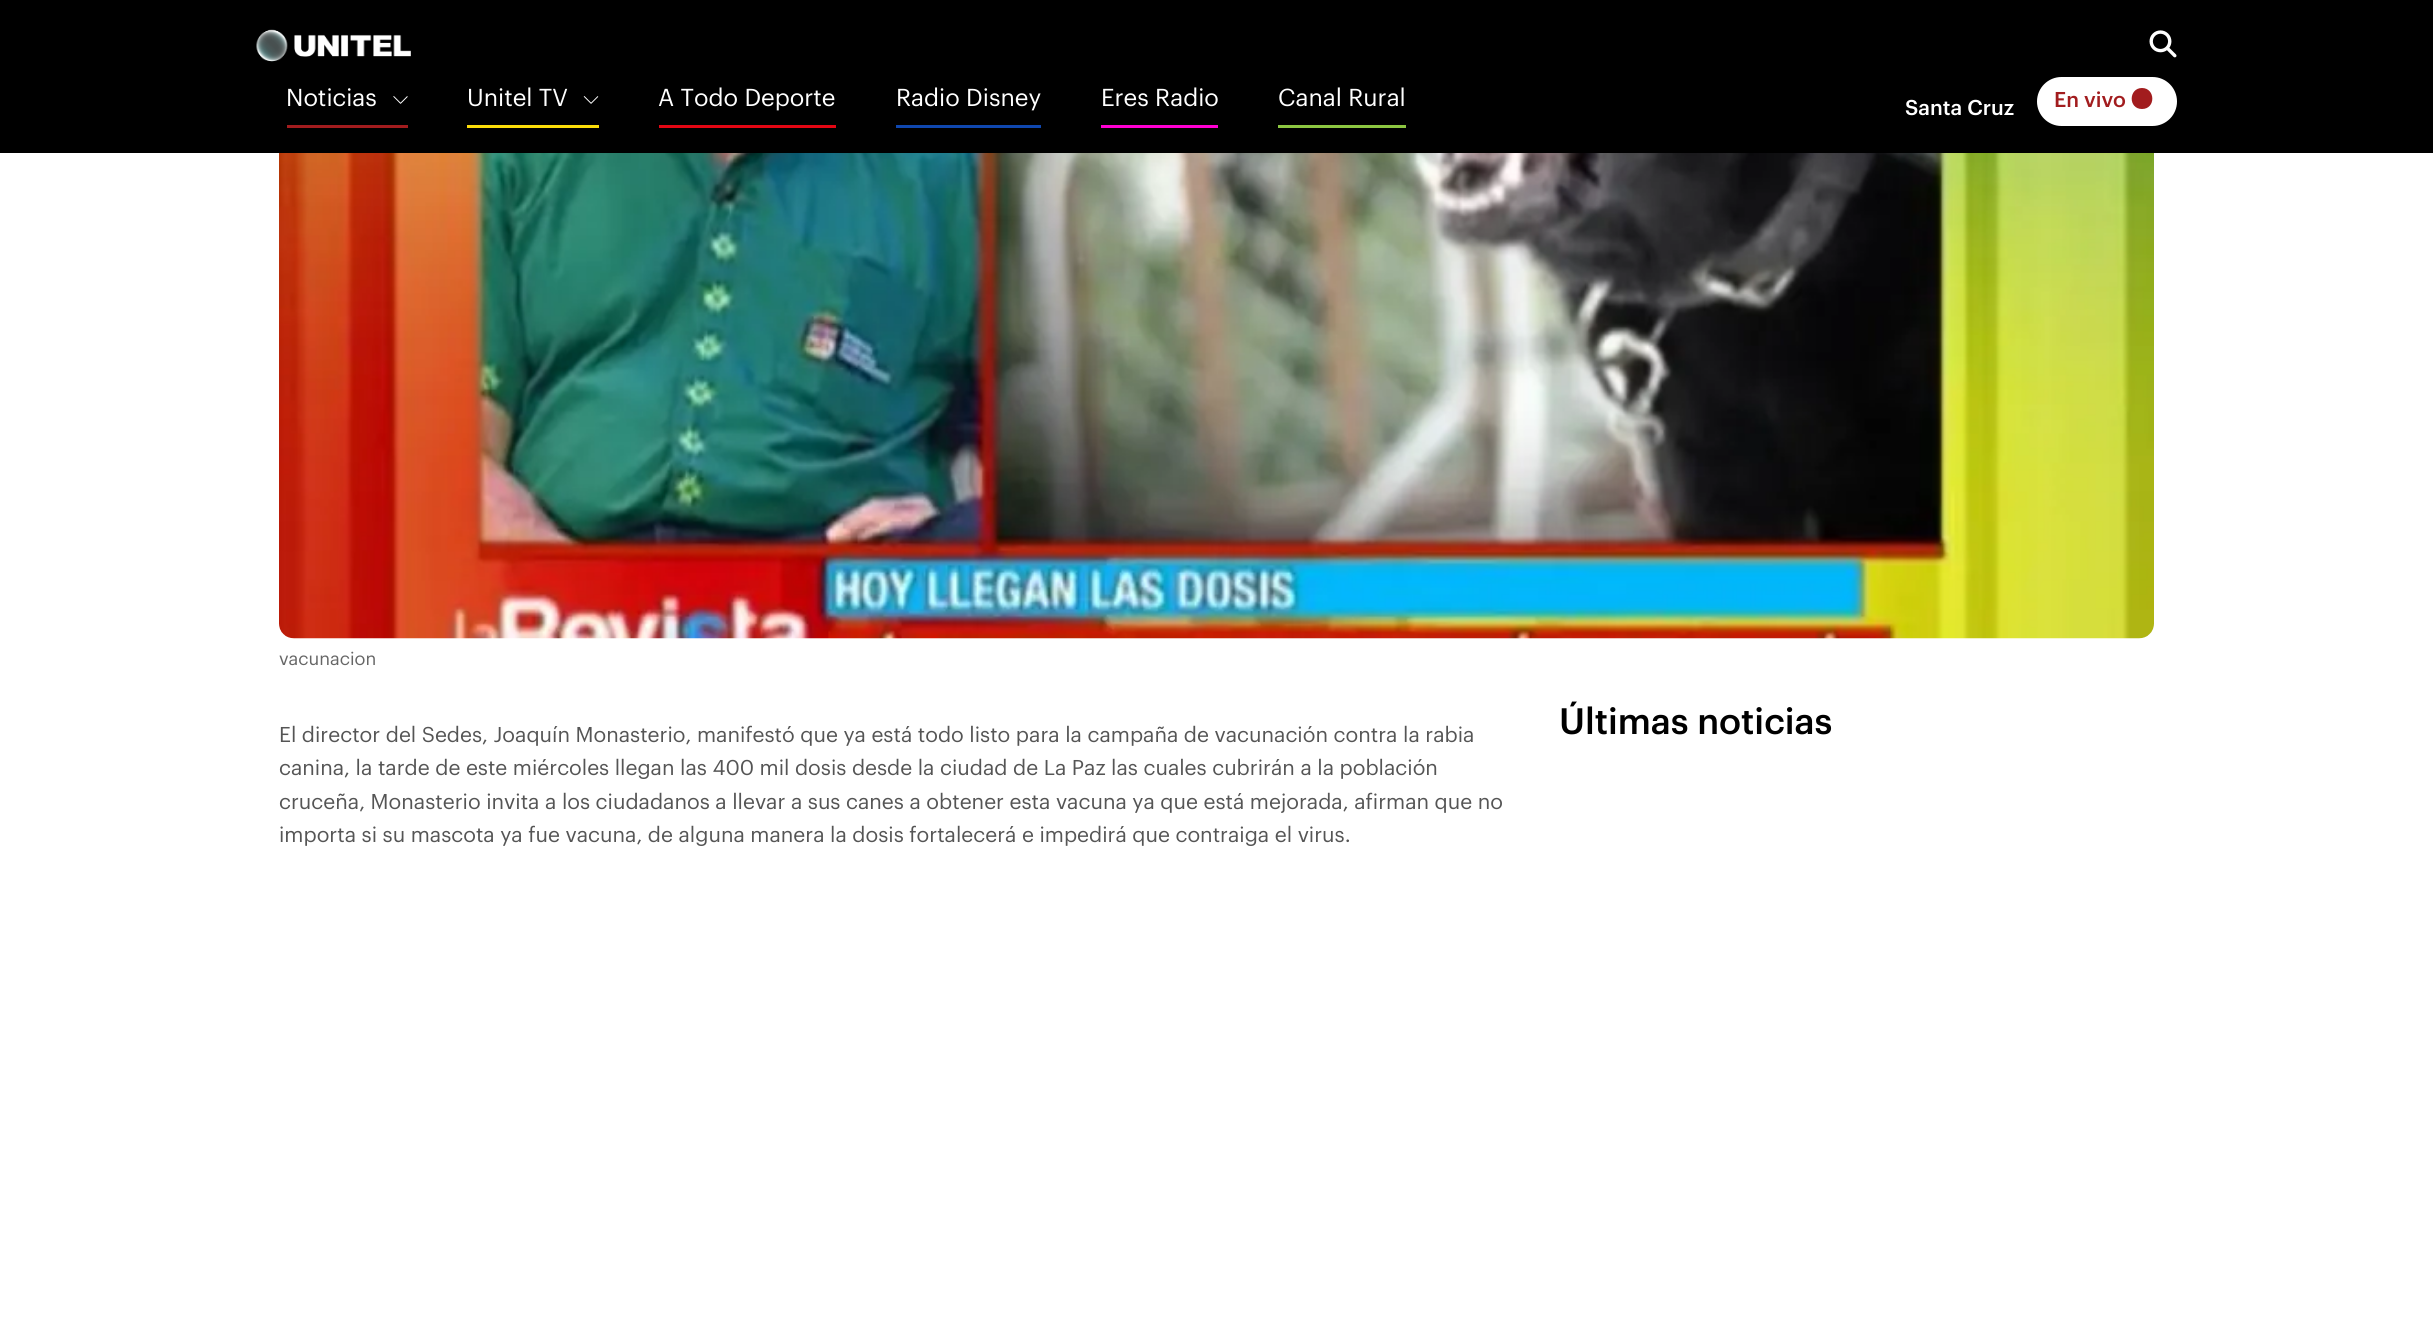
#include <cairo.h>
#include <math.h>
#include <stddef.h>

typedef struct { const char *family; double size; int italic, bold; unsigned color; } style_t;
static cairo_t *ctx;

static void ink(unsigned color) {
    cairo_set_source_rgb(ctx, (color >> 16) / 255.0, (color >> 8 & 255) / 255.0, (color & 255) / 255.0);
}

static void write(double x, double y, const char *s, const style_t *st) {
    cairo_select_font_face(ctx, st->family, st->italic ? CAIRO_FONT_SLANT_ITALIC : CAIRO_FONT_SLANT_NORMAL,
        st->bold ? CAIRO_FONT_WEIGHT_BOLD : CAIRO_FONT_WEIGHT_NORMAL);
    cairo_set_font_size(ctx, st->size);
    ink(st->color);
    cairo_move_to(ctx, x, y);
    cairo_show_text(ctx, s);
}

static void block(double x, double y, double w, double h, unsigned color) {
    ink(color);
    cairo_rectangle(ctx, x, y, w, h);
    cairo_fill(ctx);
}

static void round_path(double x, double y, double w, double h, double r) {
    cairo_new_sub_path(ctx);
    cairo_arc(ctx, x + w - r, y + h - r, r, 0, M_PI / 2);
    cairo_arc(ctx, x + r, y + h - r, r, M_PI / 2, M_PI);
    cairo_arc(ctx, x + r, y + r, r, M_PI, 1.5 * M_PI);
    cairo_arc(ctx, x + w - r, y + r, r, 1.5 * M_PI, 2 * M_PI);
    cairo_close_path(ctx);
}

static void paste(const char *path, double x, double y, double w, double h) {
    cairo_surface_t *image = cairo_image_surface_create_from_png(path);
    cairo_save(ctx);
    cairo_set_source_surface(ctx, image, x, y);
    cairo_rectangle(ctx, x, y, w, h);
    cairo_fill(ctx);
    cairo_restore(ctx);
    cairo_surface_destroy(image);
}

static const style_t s1 = {"Graphik", 24, 0, 0, 0xffffff};
static const style_t s2 = {"Graphik Medium", 21, 0, 0, 0xffffff};
static const style_t s3 = {"Graphik Medium", 21, 0, 0, 0xa21c1e};
static const style_t s4 = {"Graphik", 18, 0, 0, 0x666666};
static const style_t s5 = {"Graphik Medium", 36, 0, 0, 0x000000};
static const style_t s6 = {"Graphik", 21, 0, 0, 0x555555};

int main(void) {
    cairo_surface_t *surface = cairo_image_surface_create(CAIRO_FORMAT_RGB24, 2433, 1328);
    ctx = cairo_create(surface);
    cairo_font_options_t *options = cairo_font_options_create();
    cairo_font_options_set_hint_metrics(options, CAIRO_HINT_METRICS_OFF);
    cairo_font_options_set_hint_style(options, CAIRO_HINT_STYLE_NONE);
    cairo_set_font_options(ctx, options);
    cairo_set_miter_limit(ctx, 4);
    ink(0xffffff);
    cairo_paint(ctx);
    block(0, 0, 2433, 153, 0x000000);
    paste("pic1.png", 256, 29, 155, 33);
    paste("pic2.png", 2149, 30, 28, 28);
    block(287, 125, 121, 3, 0xa21c1e);
    write(286, 106, "Noticias", &s1);
    paste("pic3.png", 393, 96, 15, 8);
    block(467, 125, 132, 3, 0xfcdd09);
    write(467, 106, "Unitel TV", &s1);
    paste("pic4.png", 583, 96, 16, 8);
    block(659, 125, 177, 3, 0xe30613);
    write(658, 106, "A Todo Deporte", &s1);
    block(896, 125, 145, 3, 0x0f47af);
    write(896, 106, "Radio Disney", &s1);
    block(1101, 125, 117, 3, 0xff00d2);
    write(1101, 106, "Eres Radio", &s1);
    block(1278, 125, 128, 3, 0x8cc641);
    write(1278, 106, "Canal Rural", &s1);
    write(1905, 115, "Santa Cruz", &s2);
    round_path(2037, 77, 140, 49, 24.5);
    cairo_fill(ctx);
    write(2054, 107, "En vivo", &s3);
    cairo_new_path(ctx);
    cairo_move_to(ctx, 2142, 109);
    cairo_curve_to(ctx, 2156, 109, 2155.5, 88, 2142, 88);
    cairo_curve_to(ctx, 2128.5, 88, 2128, 109, 2142, 109);
    cairo_close_path(ctx);
    cairo_fill(ctx);
    paste("pic5.png", 279, 153, 1875, 486);
    write(279, 665, "vacunacion", &s4);
    write(1559, 734, "Últimas noticias", &s5);
    write(279, 742, "El director del Sedes, Joaquín Monasterio, manifestó que ya está todo listo para la campaña de vacunación contra la rabia", &s6);
    write(279, 775, "canina, la tarde de este miércoles llegan las 400 mil dosis desde la ciudad de La Paz las cuales cubrirán a la población", &s6);
    write(279, 809, "cruceña, Monasterio invita a los ciudadanos a llevar a sus canes a obtener esta vacuna ya que está mejorada, afirman que no", &s6);
    write(279, 842, "importa si su mascota ya fue vacuna, de alguna manera la dosis fortalecerá e impedirá que contraiga el virus.", &s6);
    cairo_surface_write_to_png(surface, "screenshot.png");
    cairo_font_options_destroy(options);
    cairo_destroy(ctx);
    cairo_surface_destroy(surface);
    return 0;
}
